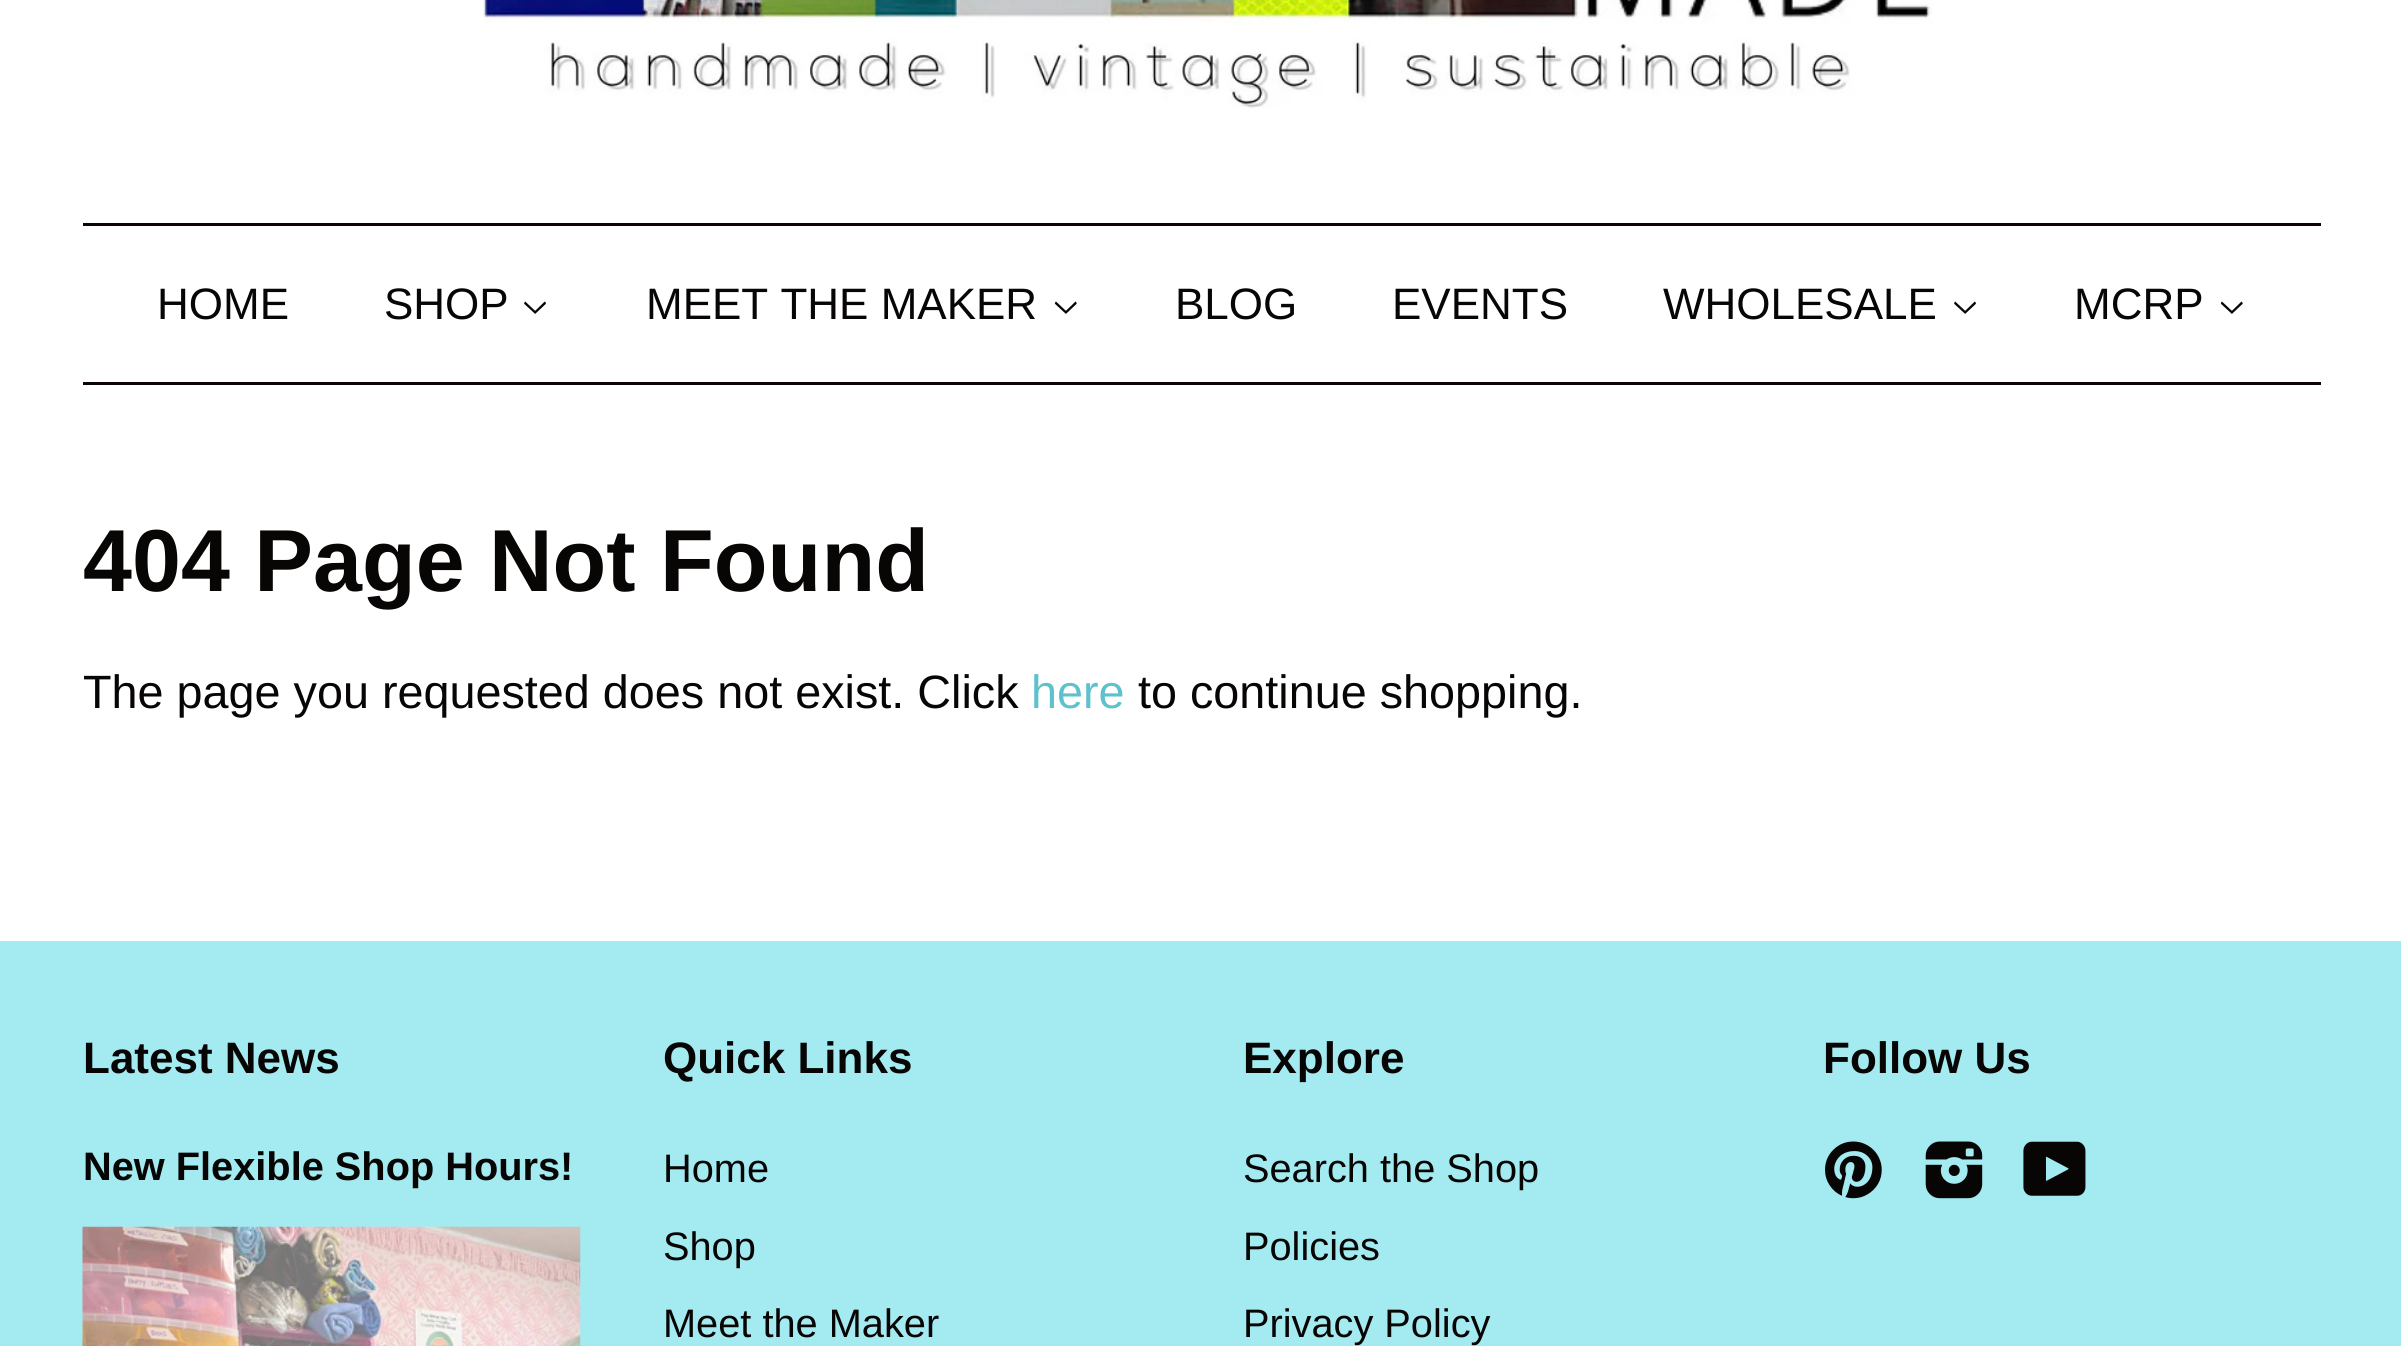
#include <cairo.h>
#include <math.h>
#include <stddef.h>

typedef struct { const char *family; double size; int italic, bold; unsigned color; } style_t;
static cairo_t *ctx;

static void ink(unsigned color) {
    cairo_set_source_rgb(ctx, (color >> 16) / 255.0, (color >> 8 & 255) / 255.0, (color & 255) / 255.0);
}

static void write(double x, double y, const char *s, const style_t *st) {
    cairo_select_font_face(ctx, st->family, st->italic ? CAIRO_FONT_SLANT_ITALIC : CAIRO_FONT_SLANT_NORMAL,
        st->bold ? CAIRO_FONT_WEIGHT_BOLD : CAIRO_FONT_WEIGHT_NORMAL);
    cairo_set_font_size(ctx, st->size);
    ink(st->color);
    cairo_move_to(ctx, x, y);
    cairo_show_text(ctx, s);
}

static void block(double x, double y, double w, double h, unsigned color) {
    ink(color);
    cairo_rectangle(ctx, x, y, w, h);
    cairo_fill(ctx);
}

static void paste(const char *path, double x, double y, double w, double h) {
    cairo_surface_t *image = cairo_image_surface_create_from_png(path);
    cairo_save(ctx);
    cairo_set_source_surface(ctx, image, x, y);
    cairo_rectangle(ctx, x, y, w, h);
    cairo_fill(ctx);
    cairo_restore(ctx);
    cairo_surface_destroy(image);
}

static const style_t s1 = {"Liberation Sans", 44, 0, 0, 0x080505};
static const style_t s2 = {"Liberation Sans", 88, 0, 1, 0x080505};
static const style_t s3 = {"Liberation Sans", 46.75, 0, 0, 0x080505};
static const style_t s4 = {"Liberation Sans", 46.75, 0, 0, 0x5ec1cb};
static const style_t s5 = {"Liberation Sans", 44, 0, 1, 0x080505};
static const style_t s6 = {"Liberation Sans", 39.75, 0, 1, 0x080505};
static const style_t s7 = {"Liberation Sans", 39.75, 0, 0, 0x080505};

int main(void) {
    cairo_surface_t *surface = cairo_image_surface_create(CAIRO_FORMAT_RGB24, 2401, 1346);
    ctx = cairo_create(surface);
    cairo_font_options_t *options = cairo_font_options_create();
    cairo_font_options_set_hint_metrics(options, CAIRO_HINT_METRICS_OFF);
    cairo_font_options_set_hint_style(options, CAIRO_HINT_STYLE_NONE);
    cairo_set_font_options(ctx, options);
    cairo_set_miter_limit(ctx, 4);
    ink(0xffffff);
    cairo_paint(ctx);
    paste("pic1.png", 482, 0, 1451, 108);
    block(83, 223, 2238, 3, 0x0f0404);
    block(83, 382, 2238, 3, 0x0f0404);
    write(157, 319, "HOME", &s1);
    write(384, 319, "SHOP", &s1);
    paste("pic2.png", 524, 301, 22, 13);
    write(646, 319, "MEET THE MAKER", &s1);
    paste("pic3.png", 1054, 301, 23, 13);
    write(1175, 319, "BLOG", &s1);
    write(1392, 319, "EVENTS", &s1);
    write(1663, 319, "WHOLESALE", &s1);
    paste("pic2.png", 1954, 301, 22, 13);
    write(2074, 319, "MCRP", &s1);
    paste("pic3.png", 2220, 301, 23, 13);
    write(83, 591, "404 Page Not Found", &s2);
    write(83, 708, "The page you requested does not exist. Click", &s3);
    write(1031, 708, "here", &s4);
    write(1138, 708, "to continue shopping.", &s3);
    block(0, 941, 2401, 405, 0xa4eaf1);
    write(83, 1073, "Latest News", &s5);
    write(83, 1180, "New Flexible Shop Hours!", &s6);
    paste("pic4.png", 82, 1226, 499, 120);
    write(663, 1073, "Quick Links", &s5);
    write(663, 1182, "Home", &s7);
    write(663, 1260, "Shop", &s7);
    write(663, 1337, "Meet the Maker", &s7);
    write(1243, 1073, "Explore", &s5);
    write(1243, 1182, "Search the Shop", &s7);
    write(1243, 1260, "Policies", &s7);
    write(1243, 1337, "Privacy Policy", &s7);
    write(1823, 1073, "Follow Us", &s5);
    paste("pic5.png", 1825, 1141, 57, 58);
    paste("pic6.png", 1925, 1141, 58, 58);
    paste("pic7.png", 2023, 1141, 63, 55);
    cairo_surface_write_to_png(surface, "screenshot.png");
    cairo_font_options_destroy(options);
    cairo_destroy(ctx);
    cairo_surface_destroy(surface);
    return 0;
}
